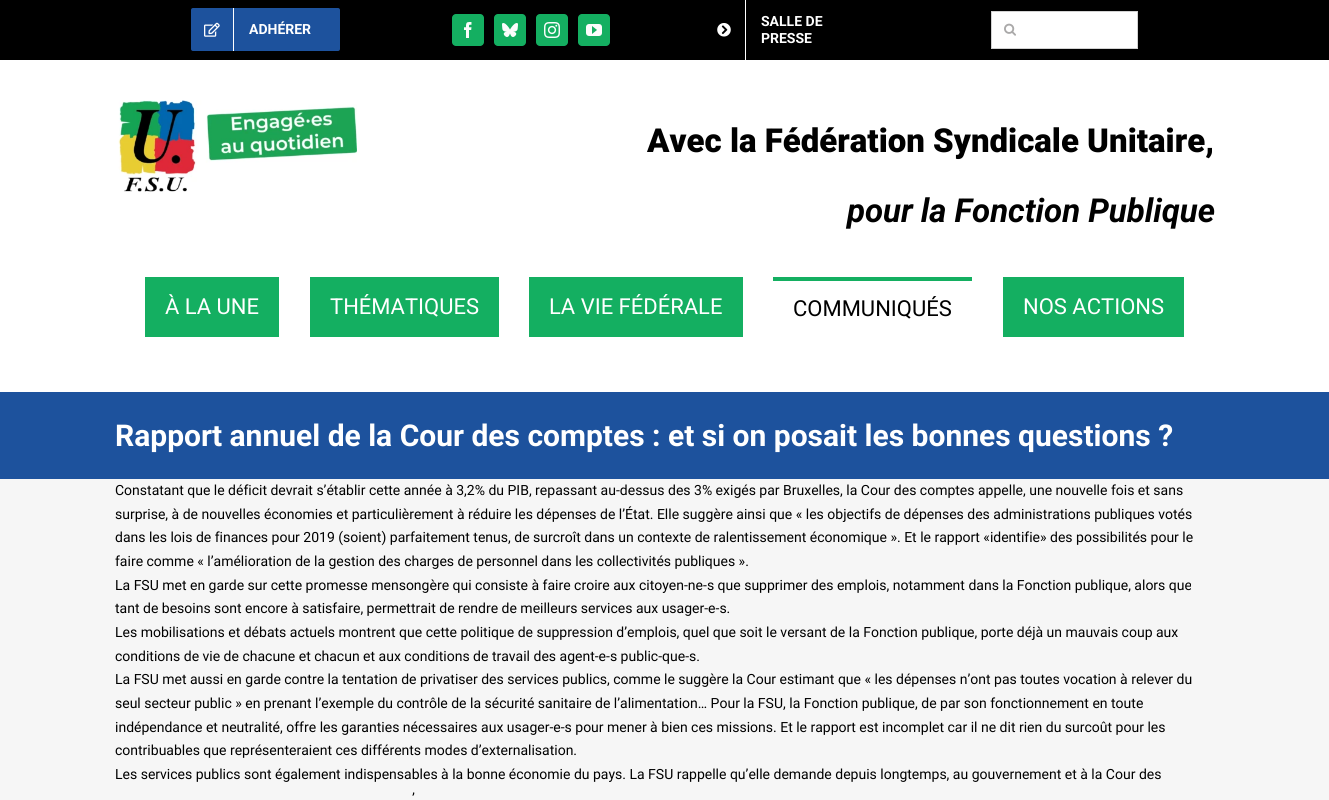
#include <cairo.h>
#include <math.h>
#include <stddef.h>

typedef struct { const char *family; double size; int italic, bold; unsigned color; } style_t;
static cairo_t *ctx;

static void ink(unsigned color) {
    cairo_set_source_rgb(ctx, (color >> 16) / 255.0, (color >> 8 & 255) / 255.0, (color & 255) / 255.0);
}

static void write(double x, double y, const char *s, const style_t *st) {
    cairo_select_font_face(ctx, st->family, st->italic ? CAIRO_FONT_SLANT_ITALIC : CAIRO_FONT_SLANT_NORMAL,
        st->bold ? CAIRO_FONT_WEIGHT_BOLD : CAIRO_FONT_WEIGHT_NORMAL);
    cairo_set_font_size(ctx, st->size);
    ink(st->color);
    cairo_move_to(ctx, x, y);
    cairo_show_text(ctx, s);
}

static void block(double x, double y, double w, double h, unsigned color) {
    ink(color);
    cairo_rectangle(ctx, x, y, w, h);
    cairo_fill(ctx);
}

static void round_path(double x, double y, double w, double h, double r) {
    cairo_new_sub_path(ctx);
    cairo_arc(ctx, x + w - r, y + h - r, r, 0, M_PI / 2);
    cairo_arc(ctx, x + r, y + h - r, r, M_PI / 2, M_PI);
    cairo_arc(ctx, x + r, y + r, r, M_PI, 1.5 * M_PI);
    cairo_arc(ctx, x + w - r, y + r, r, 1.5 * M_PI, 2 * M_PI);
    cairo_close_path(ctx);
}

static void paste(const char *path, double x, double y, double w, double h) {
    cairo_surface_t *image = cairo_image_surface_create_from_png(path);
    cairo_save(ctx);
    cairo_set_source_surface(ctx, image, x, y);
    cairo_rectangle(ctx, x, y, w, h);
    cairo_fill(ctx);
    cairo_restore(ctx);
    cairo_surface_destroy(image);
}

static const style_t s1 = {"Roboto", 14, 0, 1, 0xffffff};
static const style_t s2 = {"Roboto Black", 33, 0, 0, 0x000000};
static const style_t s3 = {"Roboto", 33, 1, 1, 0x000000};
static const style_t s4 = {"Roboto", 22, 0, 0, 0xffffff};
static const style_t s5 = {"Roboto", 22, 0, 0, 0x000000};
static const style_t s6 = {"Roboto", 30, 0, 1, 0xffffff};
static const style_t s7 = {"Roboto", 14, 0, 0, 0x000000};

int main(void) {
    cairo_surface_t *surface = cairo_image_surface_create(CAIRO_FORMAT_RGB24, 1329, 800);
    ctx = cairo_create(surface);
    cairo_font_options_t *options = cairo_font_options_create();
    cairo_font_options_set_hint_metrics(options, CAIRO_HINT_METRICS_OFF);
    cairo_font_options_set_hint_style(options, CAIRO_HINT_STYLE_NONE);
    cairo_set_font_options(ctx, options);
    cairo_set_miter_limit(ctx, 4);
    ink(0xf6f6f6);
    cairo_paint(ctx);
    block(0, 0, 1329, 60, 0x000000);
    ink(0x1d529d);
    round_path(191, 8, 149, 43, 2);
    cairo_fill(ctx);
    block(233, 8, 1, 43, 0xffffff);
    paste("pic1.png", 204, 22, 16, 15);
    write(249, 34, "ADHÉRER", &s1);
    ink(0x14af61);
    round_path(452, 14, 32, 32, 4);
    cairo_fill(ctx);
    paste("pic2.png", 464, 22, 8, 16);
    round_path(494, 14, 32, 32, 4);
    cairo_fill(ctx);
    paste("pic3.png", 502, 23, 16, 14);
    round_path(536, 14, 32, 32, 4);
    cairo_fill(ctx);
    paste("pic4.png", 544, 22, 16, 16);
    round_path(578, 14, 32, 32, 4);
    cairo_fill(ctx);
    paste("pic5.png", 586, 24, 16, 12);
    block(745, 0, 1, 60, 0xffffff);
    paste("pic6.png", 717, 23, 14, 14);
    write(761, 26, "SALLE DE", &s1);
    write(761, 43, "PRESSE", &s1);
    cairo_rectangle(ctx, 991.5, 11.5, 146, 37);
    cairo_fill_preserve(ctx);
    ink(0xd2d2d2);
    cairo_set_line_width(ctx, 1);
    cairo_stroke(ctx);
    paste("pic7.png", 1004, 23, 12, 13);
    block(0, 60, 1329, 332, 0xffffff);
    paste("pic8.png", 118, 100, 239, 94);
    write(647, 152, "Avec la Fédération Syndicale Unitaire,", &s2);
    write(847, 222, "pour la Fonction Publique", &s3);
    block(145, 277, 134, 60, 0x14af61);
    write(165, 314, "À LA UNE", &s4);
    block(310, 277, 189, 60, 0x14af61);
    write(330, 314, "THÉMATIQUES", &s4);
    block(529, 277, 214, 60, 0x14af61);
    write(549, 314, "LA VIE FÉDÉRALE", &s4);
    block(773, 277, 199, 4, 0x14af61);
    write(793, 316, "COMMUNIQUÉS", &s5);
    block(1003, 277, 181, 60, 0x14af61);
    write(1023, 314, "NOS ACTIONS", &s4);
    block(0, 392, 1329, 87, 0x1d529d);
    write(115, 446, "Rapport annuel de la Cour des comptes : et si on posait les bonnes questions ?", &s6);
    write(115, 495, "Constatant que le déficit devrait s’établir cette année à 3,2% du PIB, repassant au-dessus des 3% exigés par Bruxelles, la Cour des comptes appelle, une nouvelle fois et sans", &s7);
    write(115, 519, "surprise, à de nouvelles économies et particulièrement à réduire les dépenses de l’État. Elle suggère ainsi que « les objectifs de dépenses des administrations publiques votés", &s7);
    write(115, 542, "dans les lois de finances pour 2019 (soient) parfaitement tenus, de surcroît dans un contexte de ralentissement économique ». Et le rapport «identifie» des possibilités pour le", &s7);
    write(115, 566, "faire comme « l’amélioration de la gestion des charges de personnel dans les collectivités publiques ».", &s7);
    write(115, 590, "La FSU met en garde sur cette promesse mensongère qui consiste à faire croire aux citoyen-ne-s que supprimer des emplois, notamment dans la Fonction publique, alors que", &s7);
    write(115, 613, "tant de besoins sont encore à satisfaire, permettrait de rendre de meilleurs services aux usager-e-s.", &s7);
    write(115, 637, "Les mobilisations et débats actuels montrent que cette politique de suppression d’emplois, quel que soit le versant de la Fonction publique, porte déjà un mauvais coup aux", &s7);
    write(115, 661, "conditions de vie de chacune et chacun et aux conditions de travail des agent-e-s public-que-s.", &s7);
    write(115, 684, "La FSU met aussi en garde contre la tentation de privatiser des services publics, comme le suggère la Cour estimant que « les dépenses n’ont pas toutes vocation à relever du", &s7);
    write(115, 708, "seul secteur public » en prenant l’exemple du contrôle de la sécurité sanitaire de l’alimentation… Pour la FSU, la Fonction publique, de par son fonctionnement en toute", &s7);
    write(115, 732, "indépendance et neutralité, offre les garanties nécessaires aux usager-e-s pour mener à bien ces missions. Et le rapport est incomplet car il ne dit rien du surcoût pour les", &s7);
    write(115, 755, "contribuables que représenteraient ces différents modes d’externalisation.", &s7);
    write(115, 779, "Les services publics sont également indispensables à la bonne économie du pays. La FSU rappelle qu’elle demande depuis longtemps, au gouvernement et à la Cour des", &s7);
    write(412, 803, "’", &s7);
    cairo_surface_write_to_png(surface, "screenshot.png");
    cairo_font_options_destroy(options);
    cairo_destroy(ctx);
    cairo_surface_destroy(surface);
    return 0;
}
